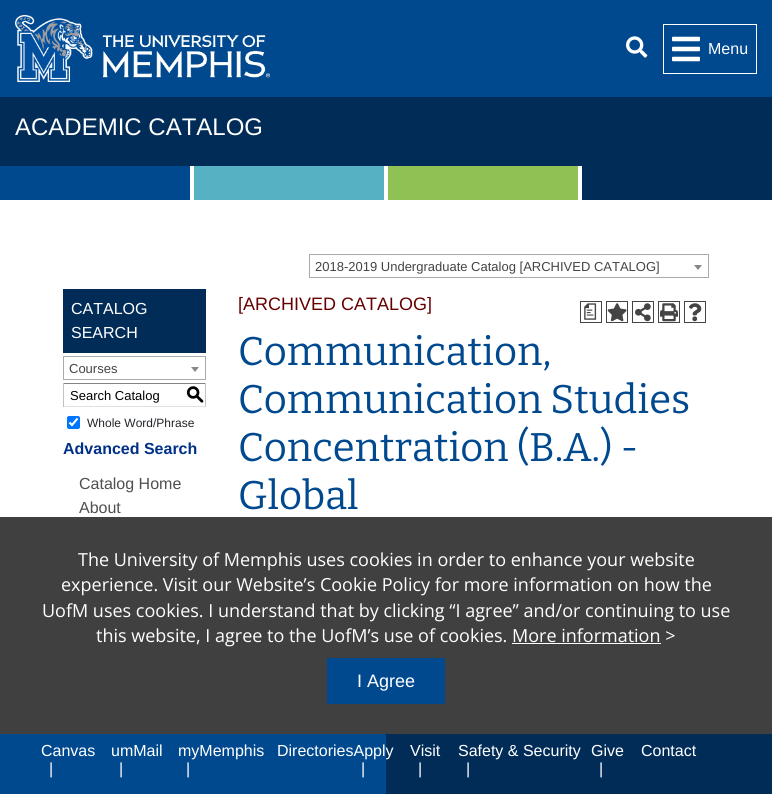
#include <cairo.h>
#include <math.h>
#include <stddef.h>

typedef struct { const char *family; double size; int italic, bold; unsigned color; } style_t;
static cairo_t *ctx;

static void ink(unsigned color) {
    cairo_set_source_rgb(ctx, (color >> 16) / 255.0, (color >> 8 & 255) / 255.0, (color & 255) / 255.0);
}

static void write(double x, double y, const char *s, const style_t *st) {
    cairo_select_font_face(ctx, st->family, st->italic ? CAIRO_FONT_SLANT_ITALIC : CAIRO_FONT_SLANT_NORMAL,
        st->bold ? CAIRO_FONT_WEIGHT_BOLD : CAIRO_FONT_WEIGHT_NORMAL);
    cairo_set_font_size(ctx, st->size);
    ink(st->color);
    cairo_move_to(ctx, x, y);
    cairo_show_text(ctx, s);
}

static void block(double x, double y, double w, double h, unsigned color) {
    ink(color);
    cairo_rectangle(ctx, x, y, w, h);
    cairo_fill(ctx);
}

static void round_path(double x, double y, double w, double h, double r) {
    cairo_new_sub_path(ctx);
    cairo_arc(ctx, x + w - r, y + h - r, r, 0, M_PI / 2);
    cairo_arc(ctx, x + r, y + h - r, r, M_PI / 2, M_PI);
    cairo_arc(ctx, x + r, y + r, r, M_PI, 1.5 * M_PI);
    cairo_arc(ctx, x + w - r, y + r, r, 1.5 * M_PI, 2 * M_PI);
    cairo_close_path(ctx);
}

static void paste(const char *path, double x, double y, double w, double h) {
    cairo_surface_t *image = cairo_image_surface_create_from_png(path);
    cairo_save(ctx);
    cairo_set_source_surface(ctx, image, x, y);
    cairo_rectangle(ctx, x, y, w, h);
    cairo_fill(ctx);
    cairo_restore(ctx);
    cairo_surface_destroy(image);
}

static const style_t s1 = {"Liberation Sans", 16, 0, 0, 0xffffff};
static const style_t s2 = {"Liberation Sans", 24, 0, 0, 0xffffff};
static const style_t s3 = {"Liberation Sans", 13, 0, 0, 0x444444};
static const style_t s4 = {"Liberation Sans", 13, 0, 0, 0x000000};
static const style_t s5 = {"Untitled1 Medium", 18, 0, 0, 0x000000};
static const style_t s6 = {"Liberation Sans", 12, 0, 0, 0x212529};
static const style_t s7 = {"Liberation Sans", 16, 0, 1, 0x003087};
static const style_t s8 = {"Liberation Sans", 16, 0, 0, 0x4f4f4f};
static const style_t s9 = {"Liberation Sans", 18, 0, 0, 0x660000};
static const style_t s10 = {"Untitled1 Medium", 18, 0, 0, 0x444444};
static const style_t s11 = {"Bitter", 40, 0, 0, 0x00498f};
static const style_t s12 = {"Open Sans", 18, 0, 0, 0xffffff};
static const style_t s13 = {"Liberation Sans", 18, 0, 0, 0xffffff};

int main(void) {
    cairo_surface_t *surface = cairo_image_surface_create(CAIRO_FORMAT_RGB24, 772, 794);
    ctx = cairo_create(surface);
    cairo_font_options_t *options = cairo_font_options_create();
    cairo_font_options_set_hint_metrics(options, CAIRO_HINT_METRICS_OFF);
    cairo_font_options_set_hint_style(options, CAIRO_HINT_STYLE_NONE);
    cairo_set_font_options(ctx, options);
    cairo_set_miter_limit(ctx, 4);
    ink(0xffffff);
    cairo_paint(ctx);
    block(0, 0, 772, 97, 0x00498f);
    paste("pic1.png", 15, 15, 255, 67);
    paste("pic2.png", 626, 36, 22, 22);
    cairo_rectangle(ctx, 663.5, 24.5, 93, 49);
    ink(0xffffff);
    cairo_set_line_width(ctx, 1);
    cairo_stroke(ctx);
    paste("pic3.png", 672, 36, 28, 26);
    write(708, 54, "Menu", &s1);
    block(0, 97, 772, 69, 0x012c58);
    write(15, 135, "ACADEMIC CATALOG", &s2);
    block(386, 734, 386, 60, 0x012c58);
    block(0, 734, 386, 60, 0x00498f);
    write(41, 756, "Canvas", &s1);
    write(49, 774, "|", &s1);
    write(111, 756, "umMail", &s1);
    write(119, 774, "|", &s1);
    write(178, 756, "myMemphis", &s1);
    write(186, 774, "|", &s1);
    write(277, 756, "DirectoriesApply", &s1);
    write(410, 756, "Visit", &s1);
    write(418, 774, "|", &s1);
    write(458, 756, "Safety & Security", &s1);
    write(466, 774, "|", &s1);
    write(591, 756, "Give", &s1);
    write(599, 774, "|", &s1);
    write(641, 756, "Contact", &s1);
    write(361, 774, "|", &s1);
    block(0, 166, 190, 34, 0x00498f);
    block(194, 166, 190, 34, 0x56b2c3);
    block(388, 166, 190, 34, 0x90c155);
    block(582, 166, 190, 34, 0x012c58);
    cairo_rectangle(ctx, 309.5, 254.5, 399, 23);
    ink(0xaaaaaa);
    cairo_stroke(ctx);
    write(315, 271, "2018-2019 Undergraduate Catalog [ARCHIVED CATALOG]", &s3);
    ink(0x888888);
    cairo_new_path(ctx);
    cairo_move_to(ctx, 694, 265);
    cairo_line_to(ctx, 702, 265);
    cairo_line_to(ctx, 698, 270);
    cairo_close_path(ctx);
    cairo_fill(ctx);
    block(63, 289, 143, 64, 0x012c58);
    write(71, 314, "CATALOG", &s1);
    write(71, 338, "SEARCH", &s1);
    cairo_rectangle(ctx, 63.5, 356.5, 142, 23);
    ink(0xaaaaaa);
    cairo_stroke(ctx);
    write(69, 373, "Courses", &s3);
    ink(0x888888);
    cairo_new_path(ctx);
    cairo_move_to(ctx, 191, 367);
    cairo_line_to(ctx, 199, 367);
    cairo_line_to(ctx, 195, 372);
    cairo_close_path(ctx);
    cairo_fill(ctx);
    block(63, 383, 143, 1, 0x848484);
    block(205, 383, 1, 24, 0xc1c1c1);
    block(63, 406, 143, 1, 0xe1e1e1);
    block(63, 383, 1, 24, 0xc1c1c1);
    write(70, 400, "Search Catalog", &s4);
    write(186, 400, "S", &s5);
    ink(0x0075ff);
    round_path(67, 416, 13, 13, 2);
    cairo_fill(ctx);
    cairo_new_path(ctx);
    cairo_move_to(ctx, 69.5, 422.5);
    cairo_line_to(ctx, 72, 425);
    cairo_line_to(ctx, 77.5, 418.5);
    ink(0xffffff);
    cairo_set_line_width(ctx, 2.1);
    cairo_stroke(ctx);
    write(87, 427, "Whole Word/Phrase", &s6);
    write(63, 454, "Advanced Search", &s7);
    write(79, 489, "Catalog Home", &s8);
    write(79, 513, "About", &s8);
    write(238, 310, "[ARCHIVED CATALOG]", &s9);
    cairo_rectangle(ctx, 580.5, 301.5, 21, 21);
    ink(0x444444);
    cairo_set_line_width(ctx, 1);
    cairo_stroke(ctx);
    write(581, 317, "a", &s10);
    cairo_rectangle(ctx, 606.5, 301.5, 21, 21);
    cairo_stroke(ctx);
    paste("pic4.png", 607, 303, 20, 19);
    cairo_rectangle(ctx, 632.5, 301.5, 21, 21);
    cairo_stroke(ctx);
    paste("pic5.png", 635, 303, 16, 19);
    cairo_rectangle(ctx, 658.5, 301.5, 21, 21);
    cairo_stroke(ctx);
    paste("pic6.png", 660, 303, 18, 19);
    cairo_rectangle(ctx, 684.5, 301.5, 21, 21);
    cairo_stroke(ctx);
    paste("pic7.png", 689, 303, 13, 19);
    write(238, 365, "Communication,", &s11);
    write(238, 413, "Communication Studies", &s11);
    write(238, 461, "Concentration (B.A.) -", &s11);
    write(238, 509, "Global", &s11);
    block(0, 517, 772, 217, 0x404040);
    write(78, 566, "The University of Memphis uses cookies in order to enhance your website", &s12);
    write(61, 591, "experience. Visit our Website’s Cookie Policy for more information on how the", &s12);
    write(42, 617, "UofM uses cookies. I understand that by clicking “I agree” and/or continuing to use", &s12);
    write(96, 642, "this website, I agree to the UofM’s use of cookies. More information >", &s12);
    block(512, 643, 149, 1, 0xffffff);
    block(327, 658, 118, 46, 0x00498f);
    write(357, 687, "I Agree", &s13);
    cairo_surface_write_to_png(surface, "screenshot.png");
    cairo_font_options_destroy(options);
    cairo_destroy(ctx);
    cairo_surface_destroy(surface);
    return 0;
}
